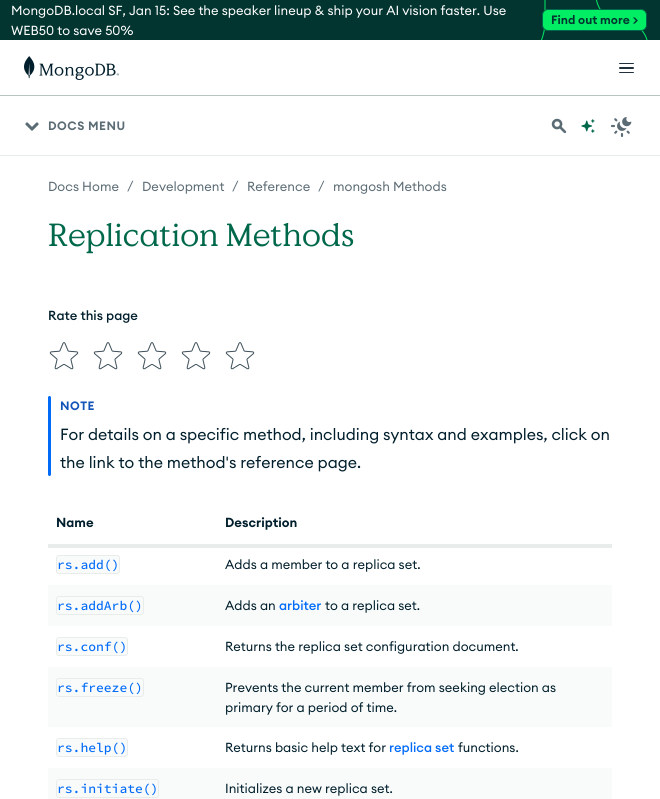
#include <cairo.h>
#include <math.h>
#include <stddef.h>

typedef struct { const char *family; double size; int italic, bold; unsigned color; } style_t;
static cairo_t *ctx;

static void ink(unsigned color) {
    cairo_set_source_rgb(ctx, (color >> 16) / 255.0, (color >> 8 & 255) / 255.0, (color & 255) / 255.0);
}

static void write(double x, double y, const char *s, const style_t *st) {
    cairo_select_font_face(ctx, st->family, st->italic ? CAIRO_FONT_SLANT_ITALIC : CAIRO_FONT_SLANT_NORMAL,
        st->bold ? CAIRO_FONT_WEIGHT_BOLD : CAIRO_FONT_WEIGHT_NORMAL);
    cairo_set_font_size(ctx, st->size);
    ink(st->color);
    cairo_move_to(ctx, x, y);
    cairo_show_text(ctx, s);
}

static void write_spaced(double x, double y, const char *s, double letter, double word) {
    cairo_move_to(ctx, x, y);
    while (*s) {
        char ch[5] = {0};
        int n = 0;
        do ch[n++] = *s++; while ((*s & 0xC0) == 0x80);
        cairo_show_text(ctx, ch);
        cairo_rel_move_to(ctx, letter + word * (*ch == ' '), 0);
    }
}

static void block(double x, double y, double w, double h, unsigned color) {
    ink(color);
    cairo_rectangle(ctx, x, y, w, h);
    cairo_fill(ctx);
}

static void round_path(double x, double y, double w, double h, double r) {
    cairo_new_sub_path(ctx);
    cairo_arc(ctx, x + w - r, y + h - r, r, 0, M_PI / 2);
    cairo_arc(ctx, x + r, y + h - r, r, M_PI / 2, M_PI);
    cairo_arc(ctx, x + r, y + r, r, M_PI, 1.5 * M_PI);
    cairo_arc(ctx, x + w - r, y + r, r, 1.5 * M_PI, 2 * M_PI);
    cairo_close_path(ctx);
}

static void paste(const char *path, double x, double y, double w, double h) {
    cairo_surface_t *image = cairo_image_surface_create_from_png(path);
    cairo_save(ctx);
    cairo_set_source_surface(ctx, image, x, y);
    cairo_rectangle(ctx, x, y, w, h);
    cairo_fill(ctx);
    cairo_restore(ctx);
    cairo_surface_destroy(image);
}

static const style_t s1 = {"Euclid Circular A", 13, 0, 0, 0xffffff};
static const style_t s2 = {"Euclid Circular A SemiBold", 12, 0, 0, 0x023430};
static const style_t s3 = {"Euclid Circular A", 13, 0, 0, 0x5c6c75};
static const style_t s4 = {"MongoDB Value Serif", 32, 0, 0, 0x00684a};
static const style_t s5 = {"Euclid Circular A Medium", 13, 0, 0, 0x001e2b};
static const style_t s6 = {"Euclid Circular A", 16, 0, 0, 0x001e2b};
static const style_t s7 = {"Euclid Circular A SemiBold", 13, 0, 0, 0x001e2b};
static const style_t s8 = {"Source Code Pro Medium", 13, 0, 0, 0x016bf8};
static const style_t s9 = {"Euclid Circular A", 13, 0, 0, 0x001e2b};
static const style_t s10 = {"Euclid Circular A Medium", 13, 0, 0, 0x016bf8};

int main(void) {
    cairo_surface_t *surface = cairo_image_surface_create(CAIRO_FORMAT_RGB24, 660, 799);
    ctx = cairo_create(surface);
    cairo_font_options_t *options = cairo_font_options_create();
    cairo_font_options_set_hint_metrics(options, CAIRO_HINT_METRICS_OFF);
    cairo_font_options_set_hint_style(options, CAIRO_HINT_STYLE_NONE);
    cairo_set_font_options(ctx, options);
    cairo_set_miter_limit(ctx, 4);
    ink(0xffffff);
    cairo_paint(ctx);
    block(0, 0, 660, 40, 0x023430);
    write(11, 15, "MongoDB.local SF, Jan 15: See the speaker lineup & ship your AI vision faster. Use", &s1);
    write(11, 35, "WEB50 to save 50%", &s1);
    paste("pic1.png", 541, 0, 107, 40);
    ink(0x00ed64);
    round_path(542.5, 9.5, 104, 21, 5.5);
    cairo_fill_preserve(ctx);
    ink(0x00684a);
    cairo_set_line_width(ctx, 1);
    cairo_stroke(ctx);
    write(551, 24, "Find out more >", &s2);
    block(0, 95, 660, 1, 0xb8c4c2);
    paste("pic2.png", 24, 56, 95, 24);
    ink(0x21313c);
    round_path(619, 63, 15, 1, 0.5);
    cairo_fill(ctx);
    round_path(619, 67, 15, 2, 1);
    cairo_fill(ctx);
    round_path(619, 72, 15, 1, 0.5);
    cairo_fill(ctx);
    block(0, 155, 660, 1, 0xe8edeb);
    paste("pic3.png", 25, 122, 14, 9);
    ink(0x5c6c75);
    write_spaced(48, 130, "DOCS MENU", 0.5, 0);
    paste("pic4.png", 551, 118, 16, 16);
    paste("pic5.png", 581, 119, 14, 14);
    paste("pic6.png", 611, 117, 21, 20);
    write(48, 191, "Docs Home", &s3);
    write(127, 190, "/", &s3);
    write(142, 191, "Development", &s3);
    write(232, 190, "/", &s3);
    write(247, 191, "Reference", &s3);
    write(318, 190, "/", &s3);
    write(333, 191, "mongosh Methods", &s3);
    write(48, 246, "Replication Methods", &s4);
    write(48, 320, "Rate this page", &s5);
    paste("pic7.png", 49, 342, 30, 28);
    paste("pic7.png", 93, 342, 30, 28);
    paste("pic7.png", 137, 342, 30, 28);
    paste("pic7.png", 181, 342, 30, 28);
    paste("pic7.png", 225, 342, 30, 28);
    ink(0x016bf8);
    round_path(48, 396, 3, 80, 1.5);
    cairo_fill(ctx);
    cairo_select_font_face(ctx, "Euclid Circular A SemiBold", CAIRO_FONT_SLANT_NORMAL, CAIRO_FONT_WEIGHT_NORMAL);
    cairo_set_font_size(ctx, 12);
    ink(0x1254b7);
    write_spaced(60, 410, "NOTE", 0.5, 0);
    write(60, 440, "For details on a specific method, including syntax and examples, click on", &s6);
    write(60, 468, "the link to the method's reference page.", &s6);
    block(48, 544, 564, 4, 0xe8edeb);
    write(56, 527, "Name", &s7);
    write(225, 527, "Description", &s7);
    ink(0xf9fbfa);
    round_path(56.5, 555.5, 63, 18, 2.5);
    cairo_fill_preserve(ctx);
    ink(0xe8edeb);
    cairo_stroke(ctx);
    write(57, 569, "rs.add()", &s8);
    write(225, 569, "Adds a member to a replica set.", &s9);
    block(48, 585, 564, 41, 0xf9fbfa);
    round_path(56.5, 596.5, 87, 18, 2.5);
    ink(0xe8edeb);
    cairo_stroke(ctx);
    write(57, 610, "rs.addArb()", &s8);
    write(225, 610, "Adds an", &s9);
    write(279, 610, "arbiter", &s10);
    write(325, 610, "to a replica set.", &s9);
    ink(0xf9fbfa);
    round_path(56.5, 637.5, 71, 18, 2.5);
    cairo_fill_preserve(ctx);
    ink(0xe8edeb);
    cairo_stroke(ctx);
    write(57, 651, "rs.conf()", &s8);
    write(225, 651, "Returns the replica set configuration document.", &s9);
    block(48, 667, 564, 60, 0xf9fbfa);
    round_path(56.5, 678.5, 87, 18, 2.5);
    ink(0xe8edeb);
    cairo_stroke(ctx);
    write(57, 692, "rs.freeze()", &s8);
    write(225, 692, "Prevents the current member from seeking election as", &s9);
    write(225, 712, "primary for a period of time.", &s9);
    ink(0xf9fbfa);
    round_path(56.5, 738.5, 71, 18, 2.5);
    cairo_fill_preserve(ctx);
    ink(0xe8edeb);
    cairo_stroke(ctx);
    write(57, 752, "rs.help()", &s8);
    write(225, 752, "Returns basic help text for", &s9);
    write(389, 752, "replica set", &s10);
    write(458, 752, "functions.", &s9);
    block(48, 768, 564, 31, 0xf9fbfa);
    round_path(56.5, 779.5, 102, 18, 2.5);
    ink(0xe8edeb);
    cairo_stroke(ctx);
    write(57, 793, "rs.initiate()", &s8);
    write(225, 793, "Initializes a new replica set.", &s9);
    cairo_surface_write_to_png(surface, "screenshot.png");
    cairo_font_options_destroy(options);
    cairo_destroy(ctx);
    cairo_surface_destroy(surface);
    return 0;
}
